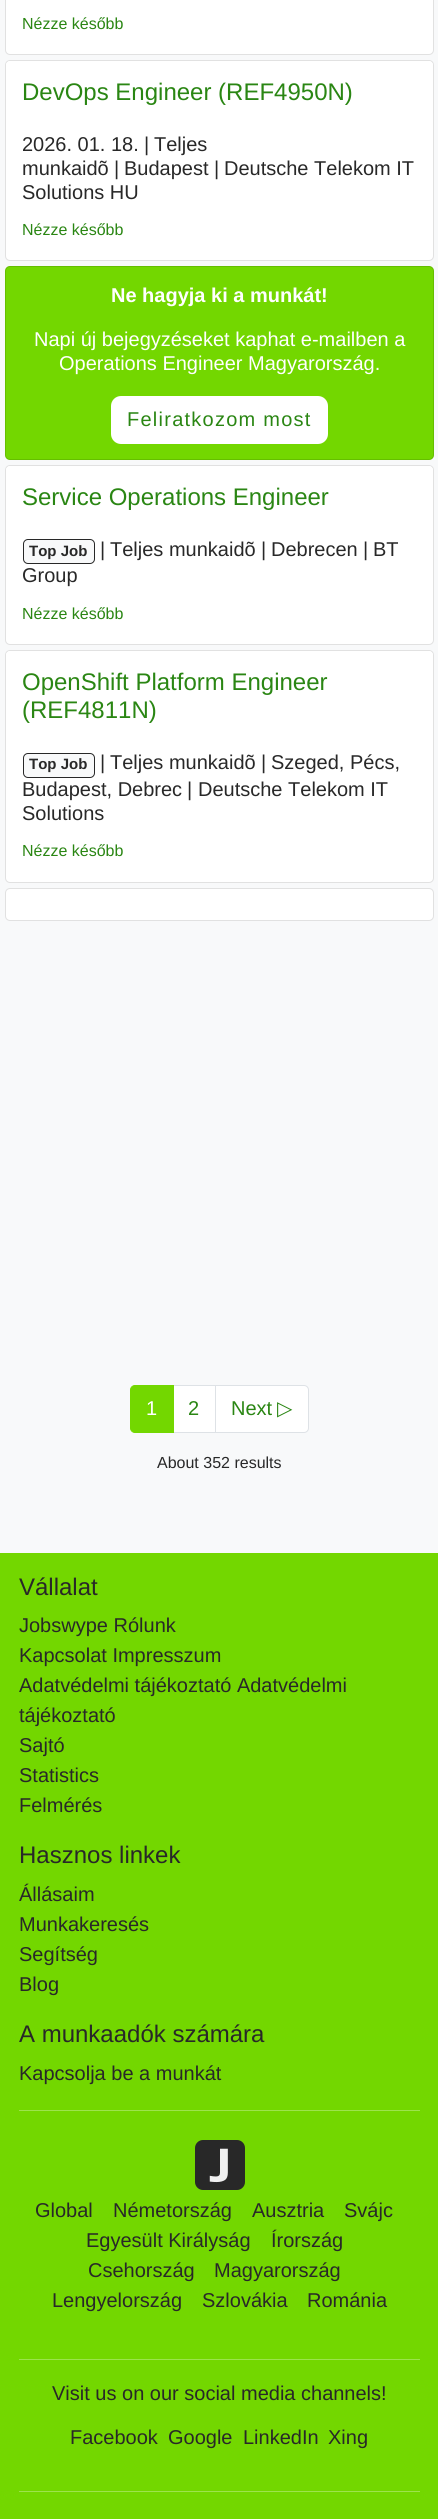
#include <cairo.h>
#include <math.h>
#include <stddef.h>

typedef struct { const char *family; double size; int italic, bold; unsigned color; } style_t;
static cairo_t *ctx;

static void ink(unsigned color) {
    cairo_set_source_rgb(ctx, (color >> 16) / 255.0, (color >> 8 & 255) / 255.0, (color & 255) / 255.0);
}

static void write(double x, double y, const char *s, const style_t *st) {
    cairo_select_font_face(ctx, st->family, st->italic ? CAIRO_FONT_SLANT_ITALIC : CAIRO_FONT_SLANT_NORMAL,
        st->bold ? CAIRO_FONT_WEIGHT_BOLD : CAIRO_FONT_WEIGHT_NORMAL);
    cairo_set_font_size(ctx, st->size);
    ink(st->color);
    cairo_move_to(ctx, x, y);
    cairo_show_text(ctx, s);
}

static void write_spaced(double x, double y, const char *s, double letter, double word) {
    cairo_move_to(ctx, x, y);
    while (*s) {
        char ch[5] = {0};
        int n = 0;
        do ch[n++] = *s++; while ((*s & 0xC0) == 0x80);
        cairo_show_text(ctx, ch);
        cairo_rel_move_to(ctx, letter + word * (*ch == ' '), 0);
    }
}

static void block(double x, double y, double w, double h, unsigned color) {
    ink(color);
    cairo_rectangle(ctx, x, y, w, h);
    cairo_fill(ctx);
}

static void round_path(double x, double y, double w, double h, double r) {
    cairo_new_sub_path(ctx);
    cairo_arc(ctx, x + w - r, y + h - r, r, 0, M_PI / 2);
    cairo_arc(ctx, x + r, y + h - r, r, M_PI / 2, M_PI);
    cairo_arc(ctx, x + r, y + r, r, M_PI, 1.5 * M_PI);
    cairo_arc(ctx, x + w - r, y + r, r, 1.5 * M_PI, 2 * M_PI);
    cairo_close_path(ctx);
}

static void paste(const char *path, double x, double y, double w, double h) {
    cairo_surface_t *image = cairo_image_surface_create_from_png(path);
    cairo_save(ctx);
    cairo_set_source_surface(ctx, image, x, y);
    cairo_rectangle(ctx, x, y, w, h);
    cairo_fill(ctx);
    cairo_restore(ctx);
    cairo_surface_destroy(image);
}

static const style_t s1 = {"Liberation Sans", 16, 0, 0, 0x2a8613};
static const style_t s2 = {"Liberation Sans", 24, 0, 0, 0x2a8613};
static const style_t s3 = {"Liberation Sans", 20, 0, 0, 0x282828};
static const style_t s4 = {"Liberation Sans", 20, 0, 1, 0xffffff};
static const style_t s5 = {"Liberation Sans", 20, 0, 0, 0xffffff};
static const style_t s6 = {"Liberation Sans", 15, 0, 1, 0x282828};
static const style_t s7 = {"Liberation Sans", 20, 0, 0, 0x2a8613};
static const style_t s8 = {"DejaVu Sans", 20, 0, 0, 0x2a8613};
static const style_t s9 = {"Liberation Sans", 16, 0, 0, 0x282828};
static const style_t s10 = {"Liberation Sans", 24, 0, 0, 0x282828};

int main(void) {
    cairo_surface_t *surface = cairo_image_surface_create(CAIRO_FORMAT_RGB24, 438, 2519);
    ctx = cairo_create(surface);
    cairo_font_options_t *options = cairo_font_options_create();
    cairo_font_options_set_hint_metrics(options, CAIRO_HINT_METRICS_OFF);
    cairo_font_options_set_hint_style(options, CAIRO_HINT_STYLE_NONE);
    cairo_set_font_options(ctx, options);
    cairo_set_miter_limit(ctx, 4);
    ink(0xf8f9fa);
    cairo_paint(ctx);
    ink(0xffffff);
    round_path(5, -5, 429, 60, 5);
    cairo_fill(ctx);
    round_path(5.5, -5.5, 428, 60, 4.5);
    cairo_set_source_rgba(ctx, 0, 0, 0, 0.12);
    cairo_set_line_width(ctx, 1);
    cairo_stroke(ctx);
    write(22, 29, "Nézze később", &s1);
    ink(0xffffff);
    round_path(5, 60, 429, 201, 5);
    cairo_fill(ctx);
    round_path(5.5, 60.5, 428, 200, 4.5);
    cairo_set_source_rgba(ctx, 0, 0, 0, 0.12);
    cairo_stroke(ctx);
    ink(0xffffff);
    cairo_new_path(ctx);
    cairo_move_to(ctx, 10, 61);
    cairo_line_to(ctx, 429, 61);
    cairo_curve_to(ctx, 431, 61, 433, 63, 433, 65);
    cairo_line_to(ctx, 433, 133);
    cairo_line_to(ctx, 6, 133);
    cairo_line_to(ctx, 6, 65);
    cairo_curve_to(ctx, 6, 63, 8, 61, 10, 61);
    cairo_close_path(ctx);
    cairo_fill(ctx);
    write(22, 100, "DevOps Engineer (REF4950N)", &s2);
    write(22, 151, "2026. 01. 18.", &s3);
    write(144, 151, "|", &s3);
    write(154, 151, "Teljes", &s3);
    write(22, 175, "munkaidõ", &s3);
    write(114, 175, "|", &s3);
    write(124, 175, "Budapest", &s3);
    write(214, 175, "|", &s3);
    write(224, 175, "Deutsche Telekom IT", &s3);
    write(22, 199, "Solutions HU", &s3);
    write(22, 235, "Nézze később", &s1);
    ink(0x73d700);
    round_path(5, 266, 429, 194, 5);
    cairo_fill(ctx);
    round_path(5.5, 266.5, 428, 193, 4.5);
    cairo_set_source_rgba(ctx, 0, 0, 0, 0.12);
    cairo_stroke(ctx);
    write(111, 302, "Ne hagyja ki a munkát!", &s4);
    write(34, 346, "Napi új bejegyzéseket kaphat e-mailben a", &s5);
    write(59, 370, "Operations Engineer Magyarország.", &s5);
    round_path(111, 396, 217, 48, 10);
    cairo_fill(ctx);
    ink(0x2a8613);
    write_spaced(127, 426, "Feliratkozom most", 1.25, 0);
    ink(0xffffff);
    round_path(5, 465, 429, 180, 5);
    cairo_fill(ctx);
    round_path(5.5, 465.5, 428, 179, 4.5);
    cairo_set_source_rgba(ctx, 0, 0, 0, 0.12);
    cairo_stroke(ctx);
    ink(0xffffff);
    cairo_new_path(ctx);
    cairo_move_to(ctx, 10, 466);
    cairo_line_to(ctx, 429, 466);
    cairo_curve_to(ctx, 431, 466, 433, 468, 433, 470);
    cairo_line_to(ctx, 433, 538);
    cairo_line_to(ctx, 6, 538);
    cairo_line_to(ctx, 6, 470);
    cairo_curve_to(ctx, 6, 468, 8, 466, 10, 466);
    cairo_close_path(ctx);
    cairo_fill(ctx);
    write(22, 505, "Service Operations Engineer", &s2);
    ink(0xf8f9fa);
    round_path(23.5, 539.5, 71, 24, 4.5);
    cairo_fill_preserve(ctx);
    ink(0x282828);
    cairo_stroke(ctx);
    write(29, 556, "Top Job", &s6);
    write(100, 556, "|", &s3);
    write(110, 556, "Teljes munkaidõ", &s3);
    write(261, 556, "|", &s3);
    write(271, 556, "Debrecen", &s3);
    write(363, 556, "|", &s3);
    write(373, 556, "BT", &s3);
    write(22, 582, "Group", &s3);
    write(22, 619, "Nézze később", &s1);
    ink(0xffffff);
    round_path(5, 650, 429, 233, 5);
    cairo_fill(ctx);
    round_path(5.5, 650.5, 428, 232, 4.5);
    cairo_set_source_rgba(ctx, 0, 0, 0, 0.12);
    cairo_stroke(ctx);
    ink(0xffffff);
    cairo_new_path(ctx);
    cairo_move_to(ctx, 10, 651);
    cairo_line_to(ctx, 429, 651);
    cairo_curve_to(ctx, 431, 651, 433, 653, 433, 655);
    cairo_line_to(ctx, 433, 751);
    cairo_line_to(ctx, 6, 751);
    cairo_line_to(ctx, 6, 655);
    cairo_curve_to(ctx, 6, 653, 8, 651, 10, 651);
    cairo_close_path(ctx);
    cairo_fill(ctx);
    write(22, 690, "OpenShift Platform Engineer", &s2);
    write(22, 718, "(REF4811N)", &s2);
    ink(0xf8f9fa);
    round_path(23.5, 753.5, 71, 24, 4.5);
    cairo_fill_preserve(ctx);
    ink(0x282828);
    cairo_stroke(ctx);
    write(29, 769, "Top Job", &s6);
    write(100, 769, "|", &s3);
    write(110, 769, "Teljes munkaidõ", &s3);
    write(261, 769, "|", &s3);
    write(271, 769, "Szeged, Pécs,", &s3);
    write(22, 796, "Budapest, Debrec", &s3);
    write(187, 796, "|", &s3);
    write(198, 796, "Deutsche Telekom IT", &s3);
    write(22, 820, "Solutions", &s3);
    write(22, 856, "Nézze később", &s1);
    ink(0xffffff);
    round_path(5, 888, 429, 33, 5);
    cairo_fill(ctx);
    round_path(5.5, 888.5, 428, 32, 4.5);
    cairo_set_source_rgba(ctx, 0, 0, 0, 0.12);
    cairo_stroke(ctx);
    ink(0xffffff);
    cairo_rectangle(ctx, 173.5, 1385.5, 42, 47);
    cairo_fill_preserve(ctx);
    ink(0xdee2e6);
    cairo_stroke(ctx);
    ink(0x73d700);
    cairo_new_path(ctx);
    cairo_move_to(ctx, 135, 1385.5);
    cairo_line_to(ctx, 173.5, 1385.5);
    cairo_line_to(ctx, 173.5, 1432.5);
    cairo_line_to(ctx, 135, 1432.5);
    cairo_curve_to(ctx, 132.5, 1432.5, 130.5, 1430.5, 130.5, 1428);
    cairo_line_to(ctx, 130.5, 1390);
    cairo_curve_to(ctx, 130.5, 1387.5, 132.5, 1385.5, 135, 1385.5);
    cairo_close_path(ctx);
    cairo_fill_preserve(ctx);
    cairo_stroke(ctx);
    write(146, 1415, "1", &s5);
    write(188, 1415, "2", &s7);
    ink(0xffffff);
    cairo_new_path(ctx);
    cairo_move_to(ctx, 215.5, 1385.5);
    cairo_line_to(ctx, 304, 1385.5);
    cairo_curve_to(ctx, 306.5, 1385.5, 308.5, 1387.5, 308.5, 1390);
    cairo_line_to(ctx, 308.5, 1428);
    cairo_curve_to(ctx, 308.5, 1430.5, 306.5, 1432.5, 304, 1432.5);
    cairo_line_to(ctx, 215.5, 1432.5);
    cairo_close_path(ctx);
    cairo_fill_preserve(ctx);
    ink(0xdee2e6);
    cairo_stroke(ctx);
    write(231, 1415, "Next", &s7);
    write(277, 1415, "▷", &s8);
    write(157, 1468, "About 352 results", &s9);
    block(0, 1553, 438, 966, 0x73d700);
    write(19, 1595, "Vállalat", &s10);
    write(19, 1632, "Jobswype Rólunk", &s3);
    write(19, 1662, "Kapcsolat Impresszum", &s3);
    write(19, 1692, "Adatvédelmi tájékoztató Adatvédelmi", &s3);
    write(19, 1722, "tájékoztató", &s3);
    write(19, 1752, "Sajtó", &s3);
    write(19, 1782, "Statistics", &s3);
    write(19, 1812, "Felmérés", &s3);
    write(19, 1863, "Hasznos linkek", &s10);
    write(19, 1901, "Állásaim", &s3);
    write(19, 1931, "Munkakeresés", &s3);
    write(19, 1961, "Segítség", &s3);
    write(19, 1991, "Blog", &s3);
    write(19, 2042, "A munkaadók számára", &s10);
    write(19, 2080, "Kapcsolja be a munkát", &s3);
    block(19, 2110, 401, 1, 0x9de34d);
    paste("pic1.png", 195, 2140, 50, 50);
    write(35, 2217, "Global", &s3);
    write(113, 2217, "Németország", &s3);
    write(252, 2217, "Ausztria", &s3);
    write(344, 2217, "Svájc", &s3);
    write(86, 2247, "Egyesült Királyság", &s3);
    write(271, 2247, "Írország", &s3);
    write(88, 2277, "Csehország", &s3);
    write(214, 2277, "Magyarország", &s3);
    write(52, 2307, "Lengyelország", &s3);
    write(202, 2307, "Szlovákia", &s3);
    write(307, 2307, "Románia", &s3);
    block(19, 2359, 401, 1, 0x9de34d);
    write(52, 2400, "Visit us on our social media channels!", &s3);
    write(70, 2444, "Facebook", &s3);
    write(168, 2444, "Google", &s3);
    write(243, 2444, "LinkedIn", &s3);
    write(328, 2444, "Xing", &s3);
    block(19, 2491, 401, 1, 0x9de34d);
    cairo_surface_write_to_png(surface, "screenshot.png");
    cairo_font_options_destroy(options);
    cairo_destroy(ctx);
    cairo_surface_destroy(surface);
    return 0;
}
